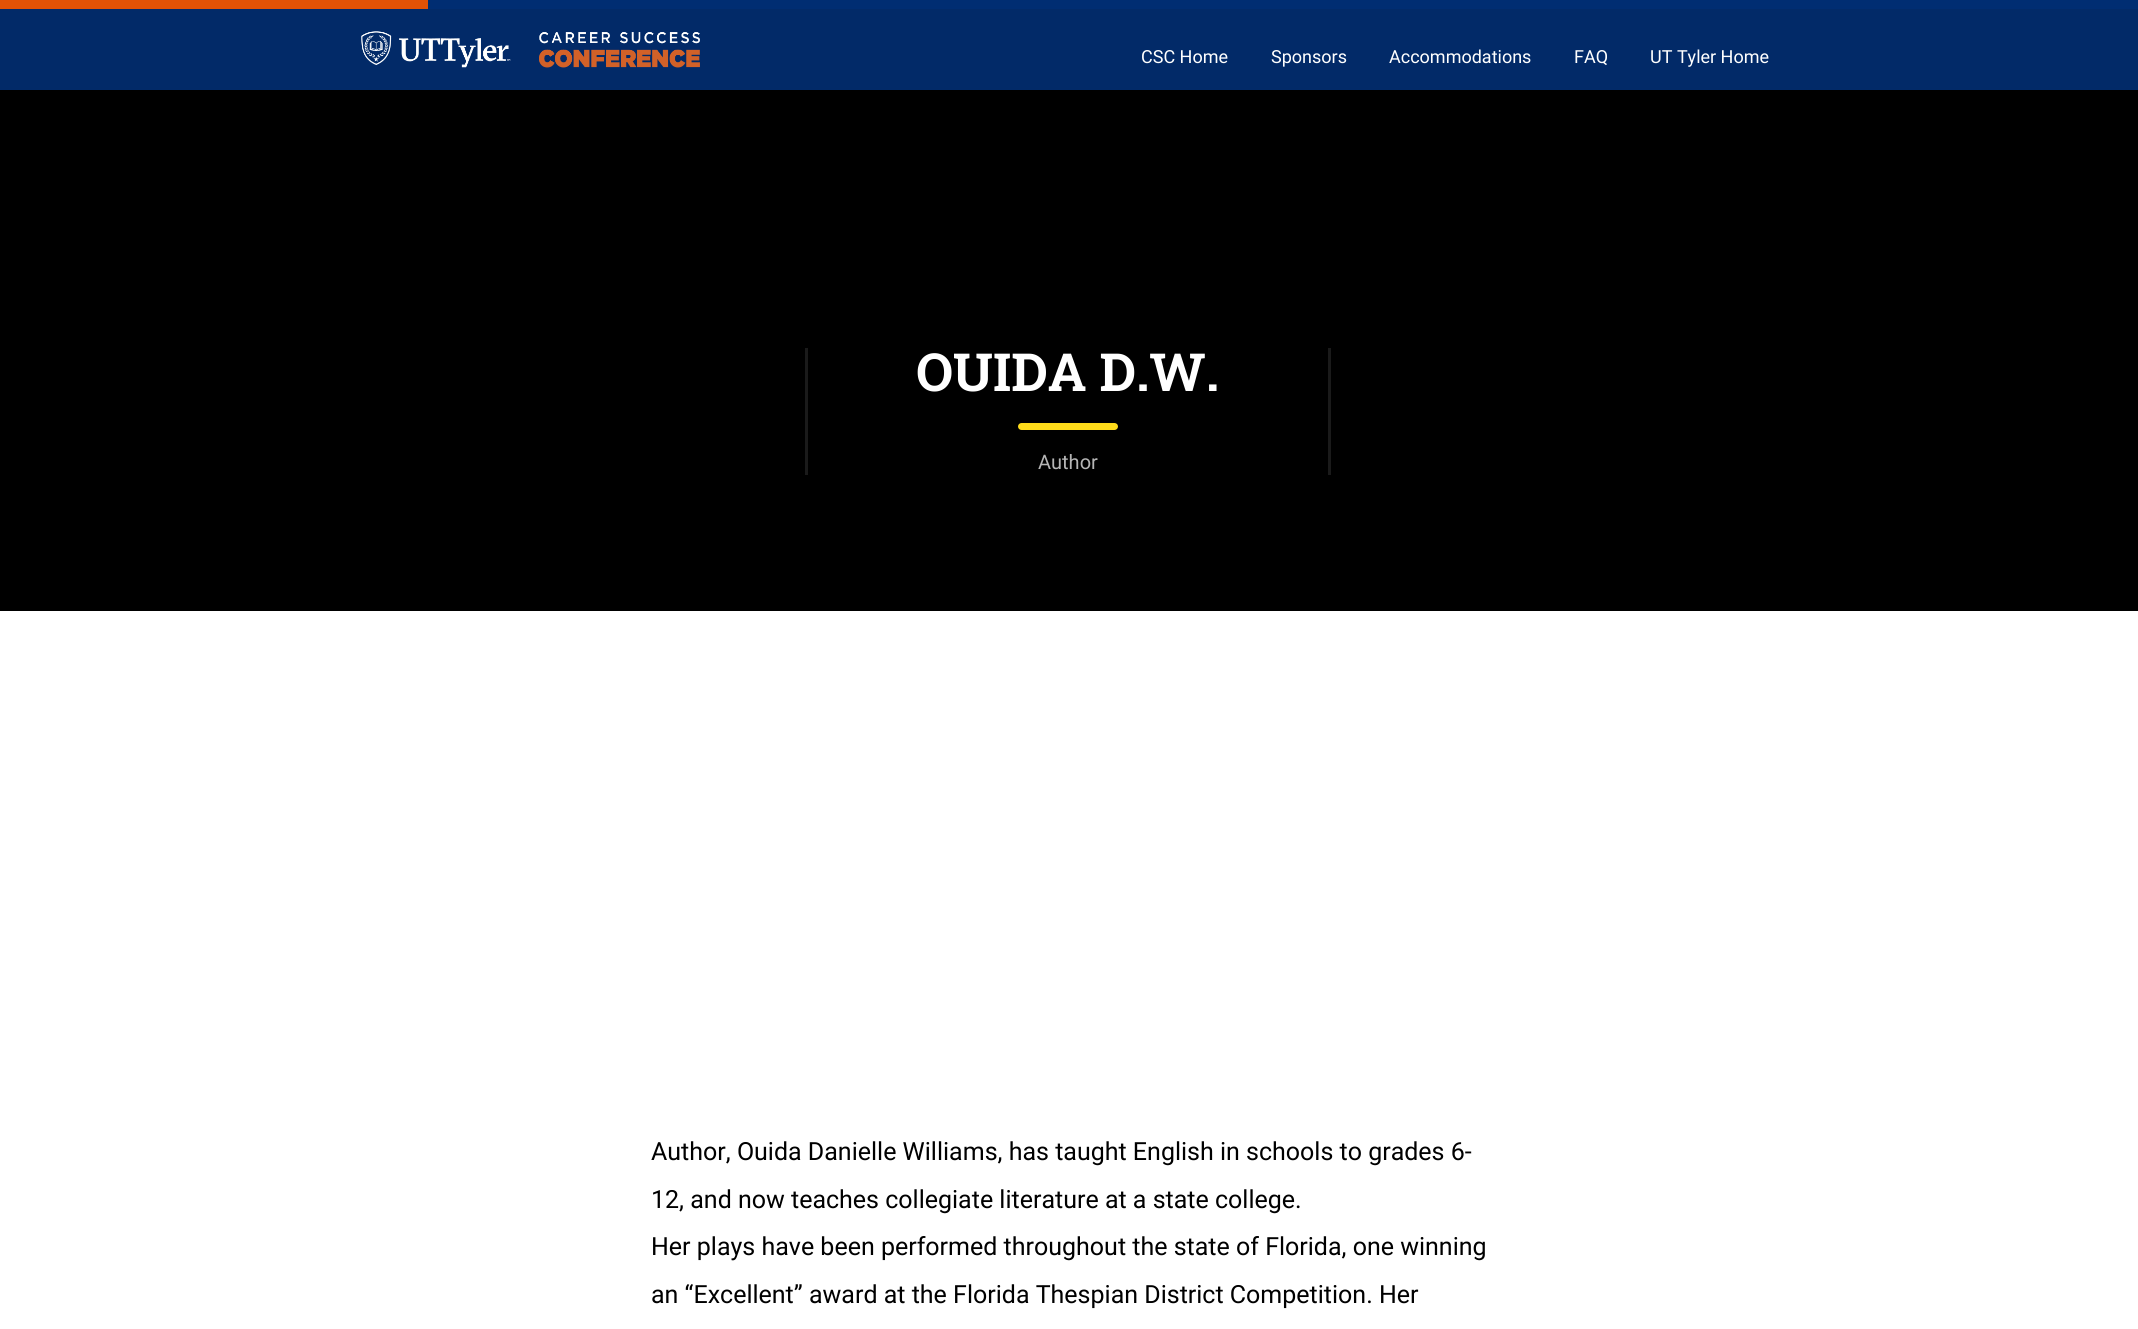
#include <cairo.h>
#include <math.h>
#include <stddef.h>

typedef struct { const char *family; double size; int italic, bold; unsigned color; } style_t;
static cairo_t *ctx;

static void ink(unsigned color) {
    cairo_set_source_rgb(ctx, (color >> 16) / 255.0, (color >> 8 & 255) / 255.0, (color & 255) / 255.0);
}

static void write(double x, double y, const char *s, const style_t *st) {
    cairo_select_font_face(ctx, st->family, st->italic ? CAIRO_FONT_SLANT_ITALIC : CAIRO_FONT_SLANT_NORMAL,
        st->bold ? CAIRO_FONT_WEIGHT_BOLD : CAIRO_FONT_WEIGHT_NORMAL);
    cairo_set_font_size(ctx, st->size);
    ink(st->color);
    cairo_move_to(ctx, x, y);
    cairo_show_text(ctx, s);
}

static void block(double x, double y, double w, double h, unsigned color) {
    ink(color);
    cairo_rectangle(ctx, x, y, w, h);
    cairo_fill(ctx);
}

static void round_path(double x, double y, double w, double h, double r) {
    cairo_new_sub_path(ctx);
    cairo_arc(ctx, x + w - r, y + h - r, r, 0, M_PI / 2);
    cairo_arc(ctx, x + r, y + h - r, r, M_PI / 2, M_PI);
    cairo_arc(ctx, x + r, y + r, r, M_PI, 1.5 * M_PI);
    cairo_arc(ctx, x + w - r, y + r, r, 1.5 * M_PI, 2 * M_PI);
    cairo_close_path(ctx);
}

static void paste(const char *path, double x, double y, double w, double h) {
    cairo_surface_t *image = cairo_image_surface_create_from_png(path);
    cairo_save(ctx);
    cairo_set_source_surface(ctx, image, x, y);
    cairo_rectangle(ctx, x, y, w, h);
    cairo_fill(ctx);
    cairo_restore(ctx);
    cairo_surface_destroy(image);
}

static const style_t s1 = {"Roboto", 18, 0, 0, 0xffffff};
static const style_t s2 = {"Roboto Slab", 52.5, 0, 1, 0xffffff};
static const style_t s3 = {"Roboto", 20, 0, 0, 0xb5b5b5};
static const style_t s4 = {"Roboto", 25, 0, 0, 0x000000};

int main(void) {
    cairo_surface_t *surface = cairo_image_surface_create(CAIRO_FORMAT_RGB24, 2138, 1329);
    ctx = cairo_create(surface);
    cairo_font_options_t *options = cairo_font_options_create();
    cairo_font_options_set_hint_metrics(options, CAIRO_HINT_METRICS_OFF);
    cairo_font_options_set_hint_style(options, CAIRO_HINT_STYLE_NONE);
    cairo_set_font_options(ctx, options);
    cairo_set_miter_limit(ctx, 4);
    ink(0xffffff);
    cairo_paint(ctx);
    block(0, 9, 2138, 81, 0x022a68);
    block(428, 0, 1710, 9, 0x002d72);
    block(0, 0, 428, 9, 0xe35205);
    paste("pic1.png", 361, 31, 339, 37);
    write(1141, 63, "CSC Home", &s1);
    write(1271, 63, "Sponsors", &s1);
    write(1389, 63, "Accommodations", &s1);
    write(1574, 63, "FAQ", &s1);
    write(1650, 63, "UT Tyler Home", &s1);
    block(0, 90, 2138, 521, 0x000000);
    block(1328, 348, 3, 127, 0x1a1a1a);
    block(805, 348, 3, 127, 0x1a1a1a);
    write(916, 391, "OUIDA D.W.", &s2);
    ink(0xffdc1a);
    round_path(1018, 423, 100, 7, 3.5);
    cairo_fill(ctx);
    write(1038, 469, "Author", &s3);
    write(651, 1160, "Author, Ouida Danielle Williams, has taught English in schools to grades 6-", &s4);
    write(651, 1208, "12, and now teaches collegiate literature at a state college.", &s4);
    write(651, 1255, "Her plays have been performed throughout the state of Florida, one winning", &s4);
    write(651, 1303, "an “Excellent” award at the Florida Thespian District Competition. Her", &s4);
    cairo_surface_write_to_png(surface, "screenshot.png");
    cairo_font_options_destroy(options);
    cairo_destroy(ctx);
    cairo_surface_destroy(surface);
    return 0;
}
